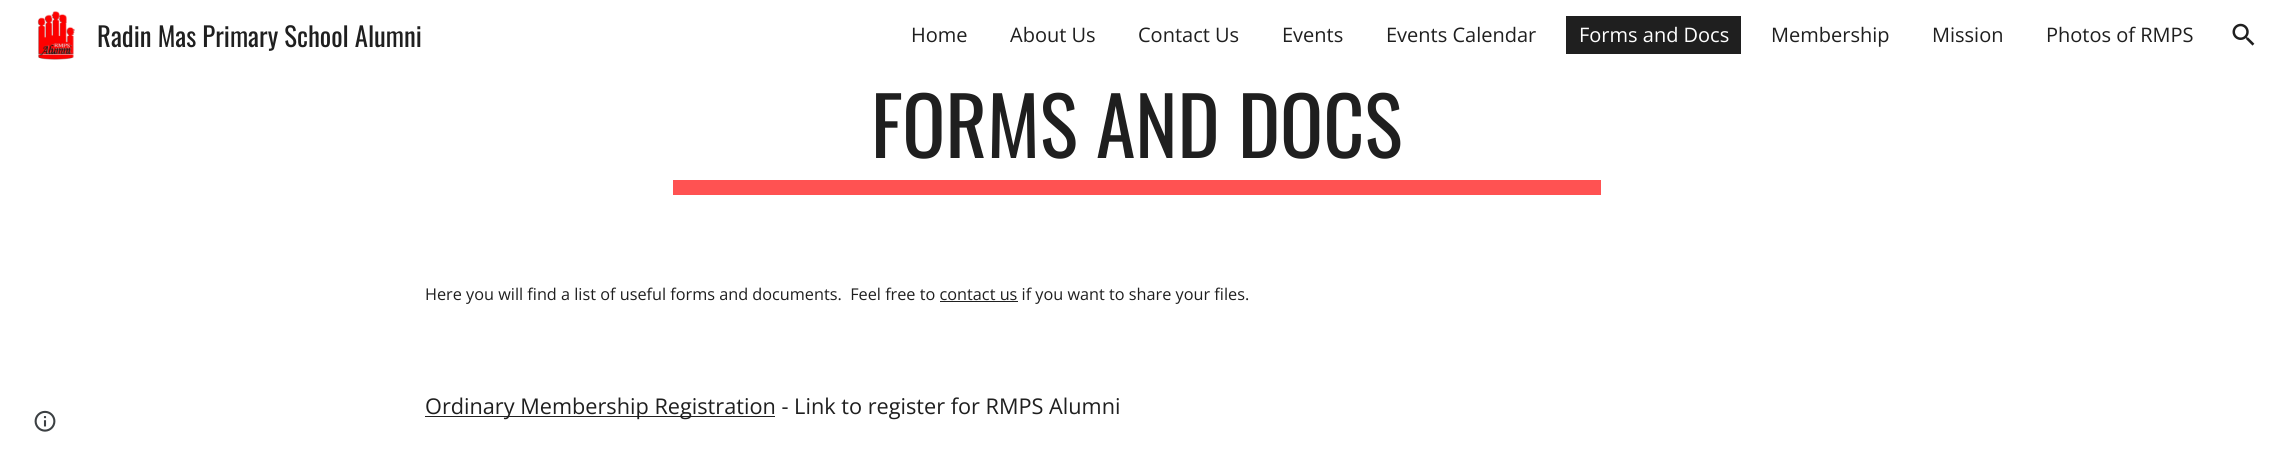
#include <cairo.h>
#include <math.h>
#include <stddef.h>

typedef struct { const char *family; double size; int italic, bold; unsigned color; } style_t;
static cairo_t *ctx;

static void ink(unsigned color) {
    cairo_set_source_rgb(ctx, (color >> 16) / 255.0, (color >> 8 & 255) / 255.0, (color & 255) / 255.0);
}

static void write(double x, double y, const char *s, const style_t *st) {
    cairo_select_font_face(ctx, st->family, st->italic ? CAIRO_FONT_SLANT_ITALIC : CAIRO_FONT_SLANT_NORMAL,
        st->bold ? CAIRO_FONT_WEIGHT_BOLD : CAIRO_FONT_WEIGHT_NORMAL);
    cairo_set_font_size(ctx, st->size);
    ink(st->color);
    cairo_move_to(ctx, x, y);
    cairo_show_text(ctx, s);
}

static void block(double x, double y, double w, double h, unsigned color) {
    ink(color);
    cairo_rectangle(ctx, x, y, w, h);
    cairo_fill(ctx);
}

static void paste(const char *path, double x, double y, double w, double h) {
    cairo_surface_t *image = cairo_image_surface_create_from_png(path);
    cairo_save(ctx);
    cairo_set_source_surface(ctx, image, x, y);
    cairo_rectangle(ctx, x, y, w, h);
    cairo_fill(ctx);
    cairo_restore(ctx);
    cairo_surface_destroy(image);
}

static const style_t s1 = {"Oswald", 26.75, 0, 0, 0x1f1f1f};
static const style_t s2 = {"Open Sans", 20, 0, 0, 0x1f1f1f};
static const style_t s3 = {"Open Sans", 20, 0, 0, 0xffffff};
static const style_t s4 = {"Oswald", 80, 0, 0, 0x1f1f1f};
static const style_t s5 = {"Open Sans", 16.25, 0, 0, 0x1f1f1f};
static const style_t s6 = {"Open Sans", 21.7, 0, 0, 0x1f1f1f};

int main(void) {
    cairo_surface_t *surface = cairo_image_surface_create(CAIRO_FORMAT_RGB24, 2273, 463);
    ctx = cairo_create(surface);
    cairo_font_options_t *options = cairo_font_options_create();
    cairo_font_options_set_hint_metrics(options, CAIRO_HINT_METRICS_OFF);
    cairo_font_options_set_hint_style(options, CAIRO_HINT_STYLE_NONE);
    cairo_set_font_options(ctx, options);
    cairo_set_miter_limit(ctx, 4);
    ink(0xffffff);
    cairo_paint(ctx);
    paste("pic1.png", 37, 11, 38, 49);
    write(97, 47, "Radin Mas Primary School Alumni", &s1);
    write(911, 42, "Home", &s2);
    write(1010, 42, "About Us", &s2);
    write(1138, 42, "Contact Us", &s2);
    write(1282, 42, "Events", &s2);
    write(1386, 42, "Events Calendar", &s2);
    block(1566, 16, 175, 38, 0x1f1f1f);
    write(1579, 42, "Forms and Docs", &s3);
    write(1771, 42, "Membership", &s2);
    write(1932, 42, "Mission", &s2);
    write(2046, 42, "Photos of RMPS", &s2);
    paste("pic2.png", 2232, 23, 23, 23);
    paste("pic3.png", 34, 410, 22, 22);
    write(871, 158, "FORMS AND DOCS", &s4);
    block(673, 180, 928, 15, 0xff5252);
    write(425, 300, "Here you will find a list of useful forms and documents.  Feel free to contact us if you want to share your files.", &s5);
    block(940, 301, 78, 1, 0x212121);
    block(425, 416, 350, 1, 0x212121);
    write(425, 414, "Ordinary Membership Registration - Link to register for RMPS Alumni", &s6);
    cairo_surface_write_to_png(surface, "screenshot.png");
    cairo_font_options_destroy(options);
    cairo_destroy(ctx);
    cairo_surface_destroy(surface);
    return 0;
}
